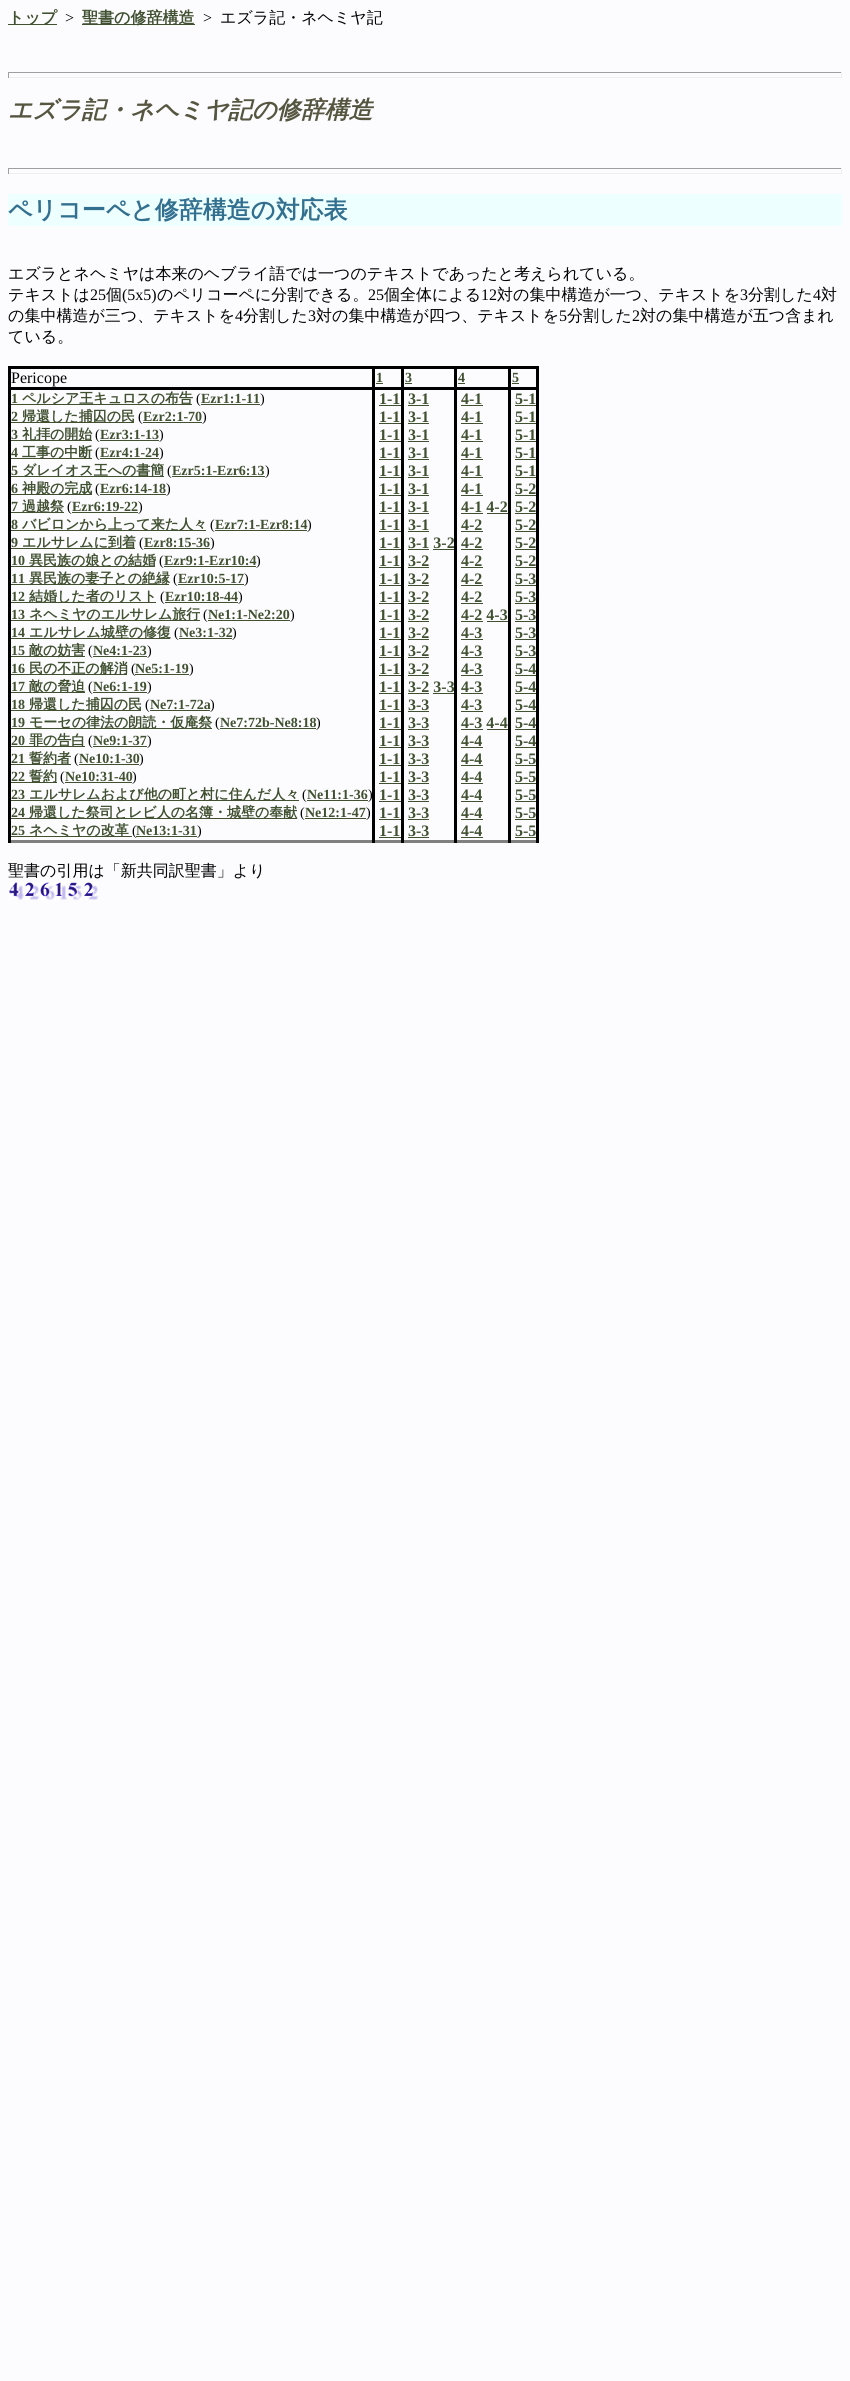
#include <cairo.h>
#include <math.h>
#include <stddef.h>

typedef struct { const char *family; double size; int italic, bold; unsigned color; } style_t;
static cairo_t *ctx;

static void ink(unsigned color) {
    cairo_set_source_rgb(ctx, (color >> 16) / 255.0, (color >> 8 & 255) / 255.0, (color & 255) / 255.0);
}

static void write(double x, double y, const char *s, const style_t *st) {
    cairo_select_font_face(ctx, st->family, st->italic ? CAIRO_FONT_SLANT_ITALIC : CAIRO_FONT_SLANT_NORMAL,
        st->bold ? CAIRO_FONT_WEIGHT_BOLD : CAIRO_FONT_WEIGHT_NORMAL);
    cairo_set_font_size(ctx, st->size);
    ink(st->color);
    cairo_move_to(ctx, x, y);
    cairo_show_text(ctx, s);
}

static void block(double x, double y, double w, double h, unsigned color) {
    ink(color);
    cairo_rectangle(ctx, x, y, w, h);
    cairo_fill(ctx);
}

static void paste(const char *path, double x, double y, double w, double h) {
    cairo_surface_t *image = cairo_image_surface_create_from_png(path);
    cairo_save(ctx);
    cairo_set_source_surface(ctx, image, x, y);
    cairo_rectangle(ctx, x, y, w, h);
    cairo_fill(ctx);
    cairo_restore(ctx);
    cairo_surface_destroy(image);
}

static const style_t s1 = {"WenQuanYi Zen Hei", 16, 0, 1, 0x405030};
static const style_t s2 = {"Liberation Serif", 16, 0, 0, 0x000000};
static const style_t s3 = {"WenQuanYi Zen Hei Medium", 16, 0, 0, 0x000000};
static const style_t s4 = {"WenQuanYi Zen Hei", 24, 1, 1, 0x555540};
static const style_t s5 = {"WenQuanYi Zen Hei", 24, 0, 1, 0x337090};
static const style_t s6 = {"Liberation Serif", 14, 0, 1, 0x405030};
static const style_t s7 = {"WenQuanYi Zen Hei", 14, 0, 1, 0x405030};
static const style_t s8 = {"Liberation Serif", 14, 0, 0, 0x000000};
static const style_t s9 = {"Liberation Serif", 16, 0, 1, 0x405030};

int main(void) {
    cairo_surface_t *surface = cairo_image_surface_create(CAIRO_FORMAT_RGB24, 850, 2381);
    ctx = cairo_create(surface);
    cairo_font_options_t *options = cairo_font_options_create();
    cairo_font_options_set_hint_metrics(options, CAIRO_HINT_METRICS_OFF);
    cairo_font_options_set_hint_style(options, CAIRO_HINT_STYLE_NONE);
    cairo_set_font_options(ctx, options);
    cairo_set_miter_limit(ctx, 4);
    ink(0xfcfcff);
    cairo_paint(ctx);
    block(8, 24, 49, 1, 0x405030);
    write(8, 23, "トップ", &s1);
    write(65, 23, ">", &s2);
    block(82, 24, 113, 1, 0x405030);
    write(82, 23, "聖書の修辞構造", &s1);
    write(203, 23, ">", &s2);
    write(220, 23, "エズラ記・ネヘミヤ記", &s3);
    block(8, 72, 834, 1, 0x9f9f9f);
    block(841, 72, 1, 6, 0xeeeeee);
    block(8, 77, 834, 1, 0xeeeeee);
    block(8, 72, 1, 6, 0x9f9f9f);
    write(8, 118, "エズラ記・ネヘミヤ記の修辞構造", &s4);
    block(8, 168, 834, 1, 0x9f9f9f);
    block(841, 168, 1, 6, 0xeeeeee);
    block(8, 173, 834, 1, 0xeeeeee);
    block(8, 168, 1, 6, 0x9f9f9f);
    block(8, 194, 834, 32, 0xeeffff);
    write(8, 218, "ペリコーペと修辞構造の対応表", &s5);
    write(8, 279, "エズラとネヘミヤは本来のヘブライ語では一つのテキストであったと考えられている。", &s3);
    write(8, 300, "テキストは", &s3);
    write(90, 300, "25", &s2);
    write(106, 300, "個", &s3);
    write(122, 300, "(5x5)", &s2);
    write(157, 300, "のペリコーペに分割できる。", &s3);
    write(368, 300, "25", &s2);
    write(384, 300, "個全体による", &s3);
    write(481, 300, "12", &s2);
    write(497, 300, "対の集中構造が一つ、テキストを", &s3);
    write(740, 300, "3", &s2);
    write(748, 300, "分割した", &s3);
    write(813, 300, "4", &s2);
    write(821, 300, "対", &s3);
    write(8, 321, "の集中構造が三つ、テキストを", &s3);
    write(235, 321, "4", &s2);
    write(243, 321, "分割した", &s3);
    write(308, 321, "3", &s2);
    write(316, 321, "対の集中構造が四つ、テキストを", &s3);
    write(559, 321, "5", &s2);
    write(567, 321, "分割した", &s3);
    write(632, 321, "2", &s2);
    write(640, 321, "対の集中構造が五つ含まれ", &s3);
    write(8, 342, "ている。", &s3);
    block(8, 840, 531, 3, 0x808080);
    block(508, 366, 31, 3, 0x000000);
    block(536, 387, 3, 456, 0x000000);
    block(536, 366, 3, 24, 0x000000);
    block(508, 387, 3, 456, 0x000000);
    block(508, 387, 31, 3, 0x000000);
    block(508, 366, 3, 24, 0x000000);
    block(454, 366, 57, 3, 0x000000);
    block(454, 387, 3, 456, 0x000000);
    block(454, 387, 57, 3, 0x000000);
    block(454, 366, 3, 24, 0x000000);
    block(401, 366, 56, 3, 0x000000);
    block(401, 387, 3, 456, 0x000000);
    block(401, 387, 56, 3, 0x000000);
    block(401, 366, 3, 24, 0x000000);
    block(372, 366, 32, 3, 0x000000);
    block(372, 387, 3, 456, 0x000000);
    block(372, 387, 32, 3, 0x000000);
    block(372, 366, 3, 24, 0x000000);
    block(8, 366, 367, 3, 0x000000);
    block(8, 387, 3, 456, 0x000000);
    block(8, 387, 367, 3, 0x000000);
    block(8, 366, 3, 24, 0x000000);
    write(11, 383, "Pericope", &s2);
    write(376, 382, "1", &s6);
    block(376, 383, 7, 1, 0x405030);
    write(405, 382, "3", &s6);
    block(405, 383, 7, 1, 0x405030);
    write(458, 382, "4", &s6);
    block(458, 383, 7, 1, 0x405030);
    write(512, 382, "5", &s6);
    block(512, 383, 7, 1, 0x405030);
    write(11, 403, "1", &s6);
    block(11, 404, 181, 1, 0x405030);
    write(22, 403, "ペルシア王キュロスの布告", &s7);
    write(196, 403, "(", &s8);
    write(201, 403, "Ezr1:1-11", &s6);
    block(201, 404, 59, 1, 0x405030);
    write(260, 403, ")", &s8);
    write(379, 404, "1-1", &s9);
    block(379, 405, 22, 1, 0x405030);
    write(408, 404, "3-1", &s9);
    block(408, 405, 21, 1, 0x405030);
    write(461, 404, "4-1", &s9);
    block(461, 405, 22, 1, 0x405030);
    write(515, 404, "5-1", &s9);
    block(515, 405, 21, 1, 0x405030);
    write(11, 421, "2", &s6);
    block(11, 422, 123, 1, 0x405030);
    write(22, 421, "帰還した捕囚の民", &s7);
    write(138, 421, "(", &s8);
    write(143, 421, "Ezr2:1-70", &s6);
    block(143, 422, 59, 1, 0x405030);
    write(202, 421, ")", &s8);
    write(379, 422, "1-1", &s9);
    block(379, 423, 22, 1, 0x405030);
    write(408, 422, "3-1", &s9);
    block(408, 423, 21, 1, 0x405030);
    write(461, 422, "4-1", &s9);
    block(461, 423, 22, 1, 0x405030);
    write(515, 422, "5-1", &s9);
    block(515, 423, 21, 1, 0x405030);
    write(11, 439, "3", &s6);
    block(11, 440, 81, 1, 0x405030);
    write(22, 439, "礼拝の開始", &s7);
    write(95, 439, "(", &s8);
    write(100, 439, "Ezr3:1-13", &s6);
    block(100, 440, 59, 1, 0x405030);
    write(159, 439, ")", &s8);
    write(379, 440, "1-1", &s9);
    block(379, 441, 22, 1, 0x405030);
    write(408, 440, "3-1", &s9);
    block(408, 441, 21, 1, 0x405030);
    write(461, 440, "4-1", &s9);
    block(461, 441, 22, 1, 0x405030);
    write(515, 440, "5-1", &s9);
    block(515, 441, 21, 1, 0x405030);
    write(11, 457, "4", &s6);
    block(11, 458, 81, 1, 0x405030);
    write(22, 457, "工事の中断", &s7);
    write(95, 457, "(", &s8);
    write(100, 457, "Ezr4:1-24", &s6);
    block(100, 458, 59, 1, 0x405030);
    write(159, 457, ")", &s8);
    write(379, 458, "1-1", &s9);
    block(379, 459, 22, 1, 0x405030);
    write(408, 458, "3-1", &s9);
    block(408, 459, 21, 1, 0x405030);
    write(461, 458, "4-1", &s9);
    block(461, 459, 22, 1, 0x405030);
    write(515, 458, "5-1", &s9);
    block(515, 459, 21, 1, 0x405030);
    write(11, 475, "5", &s6);
    block(11, 476, 153, 1, 0x405030);
    write(22, 475, "ダレイオス王への書簡", &s7);
    write(167, 475, "(", &s8);
    write(172, 475, "Ezr5:1-Ezr6:13", &s6);
    block(172, 476, 93, 1, 0x405030);
    write(265, 475, ")", &s8);
    write(379, 476, "1-1", &s9);
    block(379, 477, 22, 1, 0x405030);
    write(408, 476, "3-1", &s9);
    block(408, 477, 21, 1, 0x405030);
    write(461, 476, "4-1", &s9);
    block(461, 477, 22, 1, 0x405030);
    write(515, 476, "5-1", &s9);
    block(515, 477, 21, 1, 0x405030);
    write(11, 493, "6", &s6);
    block(11, 494, 81, 1, 0x405030);
    write(22, 493, "神殿の完成", &s7);
    write(95, 493, "(", &s8);
    write(100, 493, "Ezr6:14-18", &s6);
    block(100, 494, 66, 1, 0x405030);
    write(166, 493, ")", &s8);
    write(379, 494, "1-1", &s9);
    block(379, 495, 22, 1, 0x405030);
    write(408, 494, "3-1", &s9);
    block(408, 495, 21, 1, 0x405030);
    write(461, 494, "4-1", &s9);
    block(461, 495, 22, 1, 0x405030);
    write(515, 494, "5-2", &s9);
    block(515, 495, 21, 1, 0x405030);
    write(11, 511, "7", &s6);
    block(11, 512, 53, 1, 0x405030);
    write(22, 511, "過越祭", &s7);
    write(67, 511, "(", &s8);
    write(72, 511, "Ezr6:19-22", &s6);
    block(72, 512, 66, 1, 0x405030);
    write(138, 511, ")", &s8);
    write(379, 512, "1-1", &s9);
    block(379, 513, 22, 1, 0x405030);
    write(408, 512, "3-1", &s9);
    block(408, 513, 21, 1, 0x405030);
    write(461, 512, "4-1 4-2", &s9);
    block(461, 513, 22, 1, 0x405030);
    block(487, 513, 21, 1, 0x405030);
    write(515, 512, "5-2", &s9);
    block(515, 513, 21, 1, 0x405030);
    write(11, 529, "8", &s6);
    block(11, 530, 195, 1, 0x405030);
    write(22, 529, "バビロンから上って来た人々", &s7);
    write(210, 529, "(", &s8);
    write(215, 529, "Ezr7:1-Ezr8:14", &s6);
    block(215, 530, 92, 1, 0x405030);
    write(307, 529, ")", &s8);
    write(379, 530, "1-1", &s9);
    block(379, 531, 22, 1, 0x405030);
    write(408, 530, "3-1", &s9);
    block(408, 531, 21, 1, 0x405030);
    write(461, 530, "4-2", &s9);
    block(461, 531, 22, 1, 0x405030);
    write(515, 530, "5-2", &s9);
    block(515, 531, 21, 1, 0x405030);
    write(11, 547, "9", &s6);
    block(11, 548, 124, 1, 0x405030);
    write(22, 547, "エルサレムに到着", &s7);
    write(139, 547, "(", &s8);
    write(144, 547, "Ezr8:15-36", &s6);
    block(144, 548, 66, 1, 0x405030);
    write(210, 547, ")", &s8);
    write(379, 548, "1-1", &s9);
    block(379, 549, 22, 1, 0x405030);
    write(408, 548, "3-1 3-2", &s9);
    block(408, 549, 21, 1, 0x405030);
    block(433, 549, 21, 1, 0x405030);
    write(461, 548, "4-2", &s9);
    block(461, 549, 22, 1, 0x405030);
    write(515, 548, "5-2", &s9);
    block(515, 549, 21, 1, 0x405030);
    write(11, 565, "10", &s6);
    block(11, 566, 144, 1, 0x405030);
    write(29, 565, "異民族の娘との結婚", &s7);
    write(159, 565, "(", &s8);
    write(164, 565, "Ezr9:1-Ezr10:4", &s6);
    block(164, 566, 92, 1, 0x405030);
    write(256, 565, ")", &s8);
    write(379, 566, "1-1", &s9);
    block(379, 567, 22, 1, 0x405030);
    write(408, 566, "3-2", &s9);
    block(408, 567, 21, 1, 0x405030);
    write(461, 566, "4-2", &s9);
    block(461, 567, 22, 1, 0x405030);
    write(515, 566, "5-2", &s9);
    block(515, 567, 21, 1, 0x405030);
    write(11, 583, "11", &s6);
    block(11, 584, 158, 1, 0x405030);
    write(29, 583, "異民族の妻子との絶縁", &s7);
    write(173, 583, "(", &s8);
    write(178, 583, "Ezr10:5-17", &s6);
    block(178, 584, 66, 1, 0x405030);
    write(244, 583, ")", &s8);
    write(379, 584, "1-1", &s9);
    block(379, 585, 22, 1, 0x405030);
    write(408, 584, "3-2", &s9);
    block(408, 585, 21, 1, 0x405030);
    write(461, 584, "4-2", &s9);
    block(461, 585, 22, 1, 0x405030);
    write(515, 584, "5-3", &s9);
    block(515, 585, 21, 1, 0x405030);
    write(11, 601, "12", &s6);
    block(11, 602, 145, 1, 0x405030);
    write(29, 601, "結婚した者のリスト", &s7);
    write(160, 601, "(", &s8);
    write(165, 601, "Ezr10:18-44", &s6);
    block(165, 602, 73, 1, 0x405030);
    write(238, 601, ")", &s8);
    write(379, 602, "1-1", &s9);
    block(379, 603, 22, 1, 0x405030);
    write(408, 602, "3-2", &s9);
    block(408, 603, 21, 1, 0x405030);
    write(461, 602, "4-2", &s9);
    block(461, 603, 22, 1, 0x405030);
    write(515, 602, "5-3", &s9);
    block(515, 603, 21, 1, 0x405030);
    write(11, 619, "13", &s6);
    block(11, 620, 189, 1, 0x405030);
    write(29, 619, "ネヘミヤのエルサレム旅行", &s7);
    write(203, 619, "(", &s8);
    write(208, 619, "Ne1:1-Ne2:20", &s6);
    block(208, 620, 82, 1, 0x405030);
    write(290, 619, ")", &s8);
    write(379, 620, "1-1", &s9);
    block(379, 621, 22, 1, 0x405030);
    write(408, 620, "3-2", &s9);
    block(408, 621, 21, 1, 0x405030);
    write(461, 620, "4-2 4-3", &s9);
    block(461, 621, 22, 1, 0x405030);
    block(487, 621, 21, 1, 0x405030);
    write(515, 620, "5-3", &s9);
    block(515, 621, 21, 1, 0x405030);
    write(11, 637, "14", &s6);
    block(11, 638, 159, 1, 0x405030);
    write(29, 637, "エルサレム城壁の修復", &s7);
    write(174, 637, "(", &s8);
    write(179, 637, "Ne3:1-32", &s6);
    block(179, 638, 53, 1, 0x405030);
    write(232, 637, ")", &s8);
    write(379, 638, "1-1", &s9);
    block(379, 639, 22, 1, 0x405030);
    write(408, 638, "3-2", &s9);
    block(408, 639, 21, 1, 0x405030);
    write(461, 638, "4-3", &s9);
    block(461, 639, 22, 1, 0x405030);
    write(515, 638, "5-3", &s9);
    block(515, 639, 21, 1, 0x405030);
    write(11, 655, "15", &s6);
    block(11, 656, 74, 1, 0x405030);
    write(29, 655, "敵の妨害", &s7);
    write(88, 655, "(", &s8);
    write(93, 655, "Ne4:1-23", &s6);
    block(93, 656, 54, 1, 0x405030);
    write(147, 655, ")", &s8);
    write(379, 656, "1-1", &s9);
    block(379, 657, 22, 1, 0x405030);
    write(408, 656, "3-2", &s9);
    block(408, 657, 21, 1, 0x405030);
    write(461, 656, "4-3", &s9);
    block(461, 657, 22, 1, 0x405030);
    write(515, 656, "5-3", &s9);
    block(515, 657, 21, 1, 0x405030);
    write(11, 673, "16", &s6);
    block(11, 674, 116, 1, 0x405030);
    write(29, 673, "民の不正の解消", &s7);
    write(131, 673, "(", &s8);
    write(135, 673, "Ne5:1-19", &s6);
    block(135, 674, 54, 1, 0x405030);
    write(189, 673, ")", &s8);
    write(379, 674, "1-1", &s9);
    block(379, 675, 22, 1, 0x405030);
    write(408, 674, "3-2", &s9);
    block(408, 675, 21, 1, 0x405030);
    write(461, 674, "4-3", &s9);
    block(461, 675, 22, 1, 0x405030);
    write(515, 674, "5-4", &s9);
    block(515, 675, 21, 1, 0x405030);
    write(11, 691, "17", &s6);
    block(11, 692, 74, 1, 0x405030);
    write(29, 691, "敵の脅迫", &s7);
    write(88, 691, "(", &s8);
    write(93, 691, "Ne6:1-19", &s6);
    block(93, 692, 54, 1, 0x405030);
    write(147, 691, ")", &s8);
    write(379, 692, "1-1", &s9);
    block(379, 693, 22, 1, 0x405030);
    write(408, 692, "3-2 3-3", &s9);
    block(408, 693, 21, 1, 0x405030);
    block(433, 693, 21, 1, 0x405030);
    write(461, 692, "4-3", &s9);
    block(461, 693, 22, 1, 0x405030);
    write(515, 692, "5-4", &s9);
    block(515, 693, 21, 1, 0x405030);
    write(11, 709, "18", &s6);
    block(11, 710, 130, 1, 0x405030);
    write(29, 709, "帰還した捕囚の民", &s7);
    write(145, 709, "(", &s8);
    write(150, 709, "Ne7:1-72a", &s6);
    block(150, 710, 60, 1, 0x405030);
    write(210, 709, ")", &s8);
    write(379, 710, "1-1", &s9);
    block(379, 711, 22, 1, 0x405030);
    write(408, 710, "3-3", &s9);
    block(408, 711, 21, 1, 0x405030);
    write(461, 710, "4-3", &s9);
    block(461, 711, 22, 1, 0x405030);
    write(515, 710, "5-4", &s9);
    block(515, 711, 21, 1, 0x405030);
    write(11, 727, "19", &s6);
    block(11, 728, 201, 1, 0x405030);
    write(29, 727, "モーセの律法の朗読・仮庵祭", &s7);
    write(215, 727, "(", &s8);
    write(220, 727, "Ne7:72b-Ne8:18", &s6);
    block(220, 728, 96, 1, 0x405030);
    write(316, 727, ")", &s8);
    write(379, 728, "1-1", &s9);
    block(379, 729, 22, 1, 0x405030);
    write(408, 728, "3-3", &s9);
    block(408, 729, 21, 1, 0x405030);
    write(461, 728, "4-3 4-4", &s9);
    block(461, 729, 22, 1, 0x405030);
    block(487, 729, 21, 1, 0x405030);
    write(515, 728, "5-4", &s9);
    block(515, 729, 21, 1, 0x405030);
    write(11, 745, "20", &s6);
    block(11, 746, 74, 1, 0x405030);
    write(29, 745, "罪の告白", &s7);
    write(88, 745, "(", &s8);
    write(93, 745, "Ne9:1-37", &s6);
    block(93, 746, 54, 1, 0x405030);
    write(147, 745, ")", &s8);
    write(379, 746, "1-1", &s9);
    block(379, 747, 22, 1, 0x405030);
    write(408, 746, "3-3", &s9);
    block(408, 747, 21, 1, 0x405030);
    write(461, 746, "4-4", &s9);
    block(461, 747, 22, 1, 0x405030);
    write(515, 746, "5-4", &s9);
    block(515, 747, 21, 1, 0x405030);
    write(11, 763, "21", &s6);
    block(11, 764, 60, 1, 0x405030);
    write(29, 763, "誓約者", &s7);
    write(74, 763, "(", &s8);
    write(79, 763, "Ne10:1-30", &s6);
    block(79, 764, 60, 1, 0x405030);
    write(139, 763, ")", &s8);
    write(379, 764, "1-1", &s9);
    block(379, 765, 22, 1, 0x405030);
    write(408, 764, "3-3", &s9);
    block(408, 765, 21, 1, 0x405030);
    write(461, 764, "4-4", &s9);
    block(461, 765, 22, 1, 0x405030);
    write(515, 764, "5-5", &s9);
    block(515, 765, 21, 1, 0x405030);
    write(11, 781, "22", &s6);
    block(11, 782, 46, 1, 0x405030);
    write(29, 781, "誓約", &s7);
    write(60, 781, "(", &s8);
    write(65, 781, "Ne10:31-40", &s6);
    block(65, 782, 67, 1, 0x405030);
    write(132, 781, ")", &s8);
    write(379, 782, "1-1", &s9);
    block(379, 783, 22, 1, 0x405030);
    write(408, 782, "3-3", &s9);
    block(408, 783, 21, 1, 0x405030);
    write(461, 782, "4-4", &s9);
    block(461, 783, 22, 1, 0x405030);
    write(515, 782, "5-5", &s9);
    block(515, 783, 21, 1, 0x405030);
    write(11, 799, "23", &s6);
    block(11, 800, 288, 1, 0x405030);
    write(29, 799, "エルサレムおよび他の町と村に住んだ人々", &s7);
    write(302, 799, "(", &s8);
    write(307, 799, "Ne11:1-36", &s6);
    block(307, 800, 61, 1, 0x405030);
    write(368, 799, ")", &s8);
    write(379, 800, "1-1", &s9);
    block(379, 801, 22, 1, 0x405030);
    write(408, 800, "3-3", &s9);
    block(408, 801, 21, 1, 0x405030);
    write(461, 800, "4-4", &s9);
    block(461, 801, 22, 1, 0x405030);
    write(515, 800, "5-5", &s9);
    block(515, 801, 21, 1, 0x405030);
    write(11, 817, "24", &s6);
    block(11, 818, 286, 1, 0x405030);
    write(29, 817, "帰還した祭司とレビ人の名簿・城壁の奉献", &s7);
    write(300, 817, "(", &s8);
    write(305, 817, "Ne12:1-47", &s6);
    block(305, 818, 61, 1, 0x405030);
    write(366, 817, ")", &s8);
    write(379, 818, "1-1", &s9);
    block(379, 819, 22, 1, 0x405030);
    write(408, 818, "3-3", &s9);
    block(408, 819, 21, 1, 0x405030);
    write(461, 818, "4-4", &s9);
    block(461, 819, 22, 1, 0x405030);
    write(515, 818, "5-5", &s9);
    block(515, 819, 21, 1, 0x405030);
    write(11, 835, "25", &s6);
    block(11, 836, 121, 1, 0x405030);
    write(29, 835, "ネヘミヤの改革", &s7);
    write(132, 835, "(", &s8);
    write(136, 835, "Ne13:1-31", &s6);
    block(136, 836, 61, 1, 0x405030);
    write(197, 835, ")", &s8);
    write(379, 836, "1-1", &s9);
    block(379, 837, 22, 1, 0x405030);
    write(408, 836, "3-3", &s9);
    block(408, 837, 21, 1, 0x405030);
    write(461, 836, "4-4", &s9);
    block(461, 837, 22, 1, 0x405030);
    write(515, 836, "5-5", &s9);
    block(515, 837, 21, 1, 0x405030);
    write(8, 876, "聖書の引用は「新共同訳聖書」より", &s3);
    paste("pic1.png", 9, 882, 15, 18);
    paste("pic2.png", 25, 882, 15, 18);
    paste("pic3.png", 40, 882, 15, 18);
    paste("pic4.png", 55, 882, 12, 18);
    paste("pic5.png", 68, 882, 14, 18);
    paste("pic2.png", 84, 882, 15, 18);
    cairo_surface_write_to_png(surface, "screenshot.png");
    cairo_font_options_destroy(options);
    cairo_destroy(ctx);
    cairo_surface_destroy(surface);
    return 0;
}
